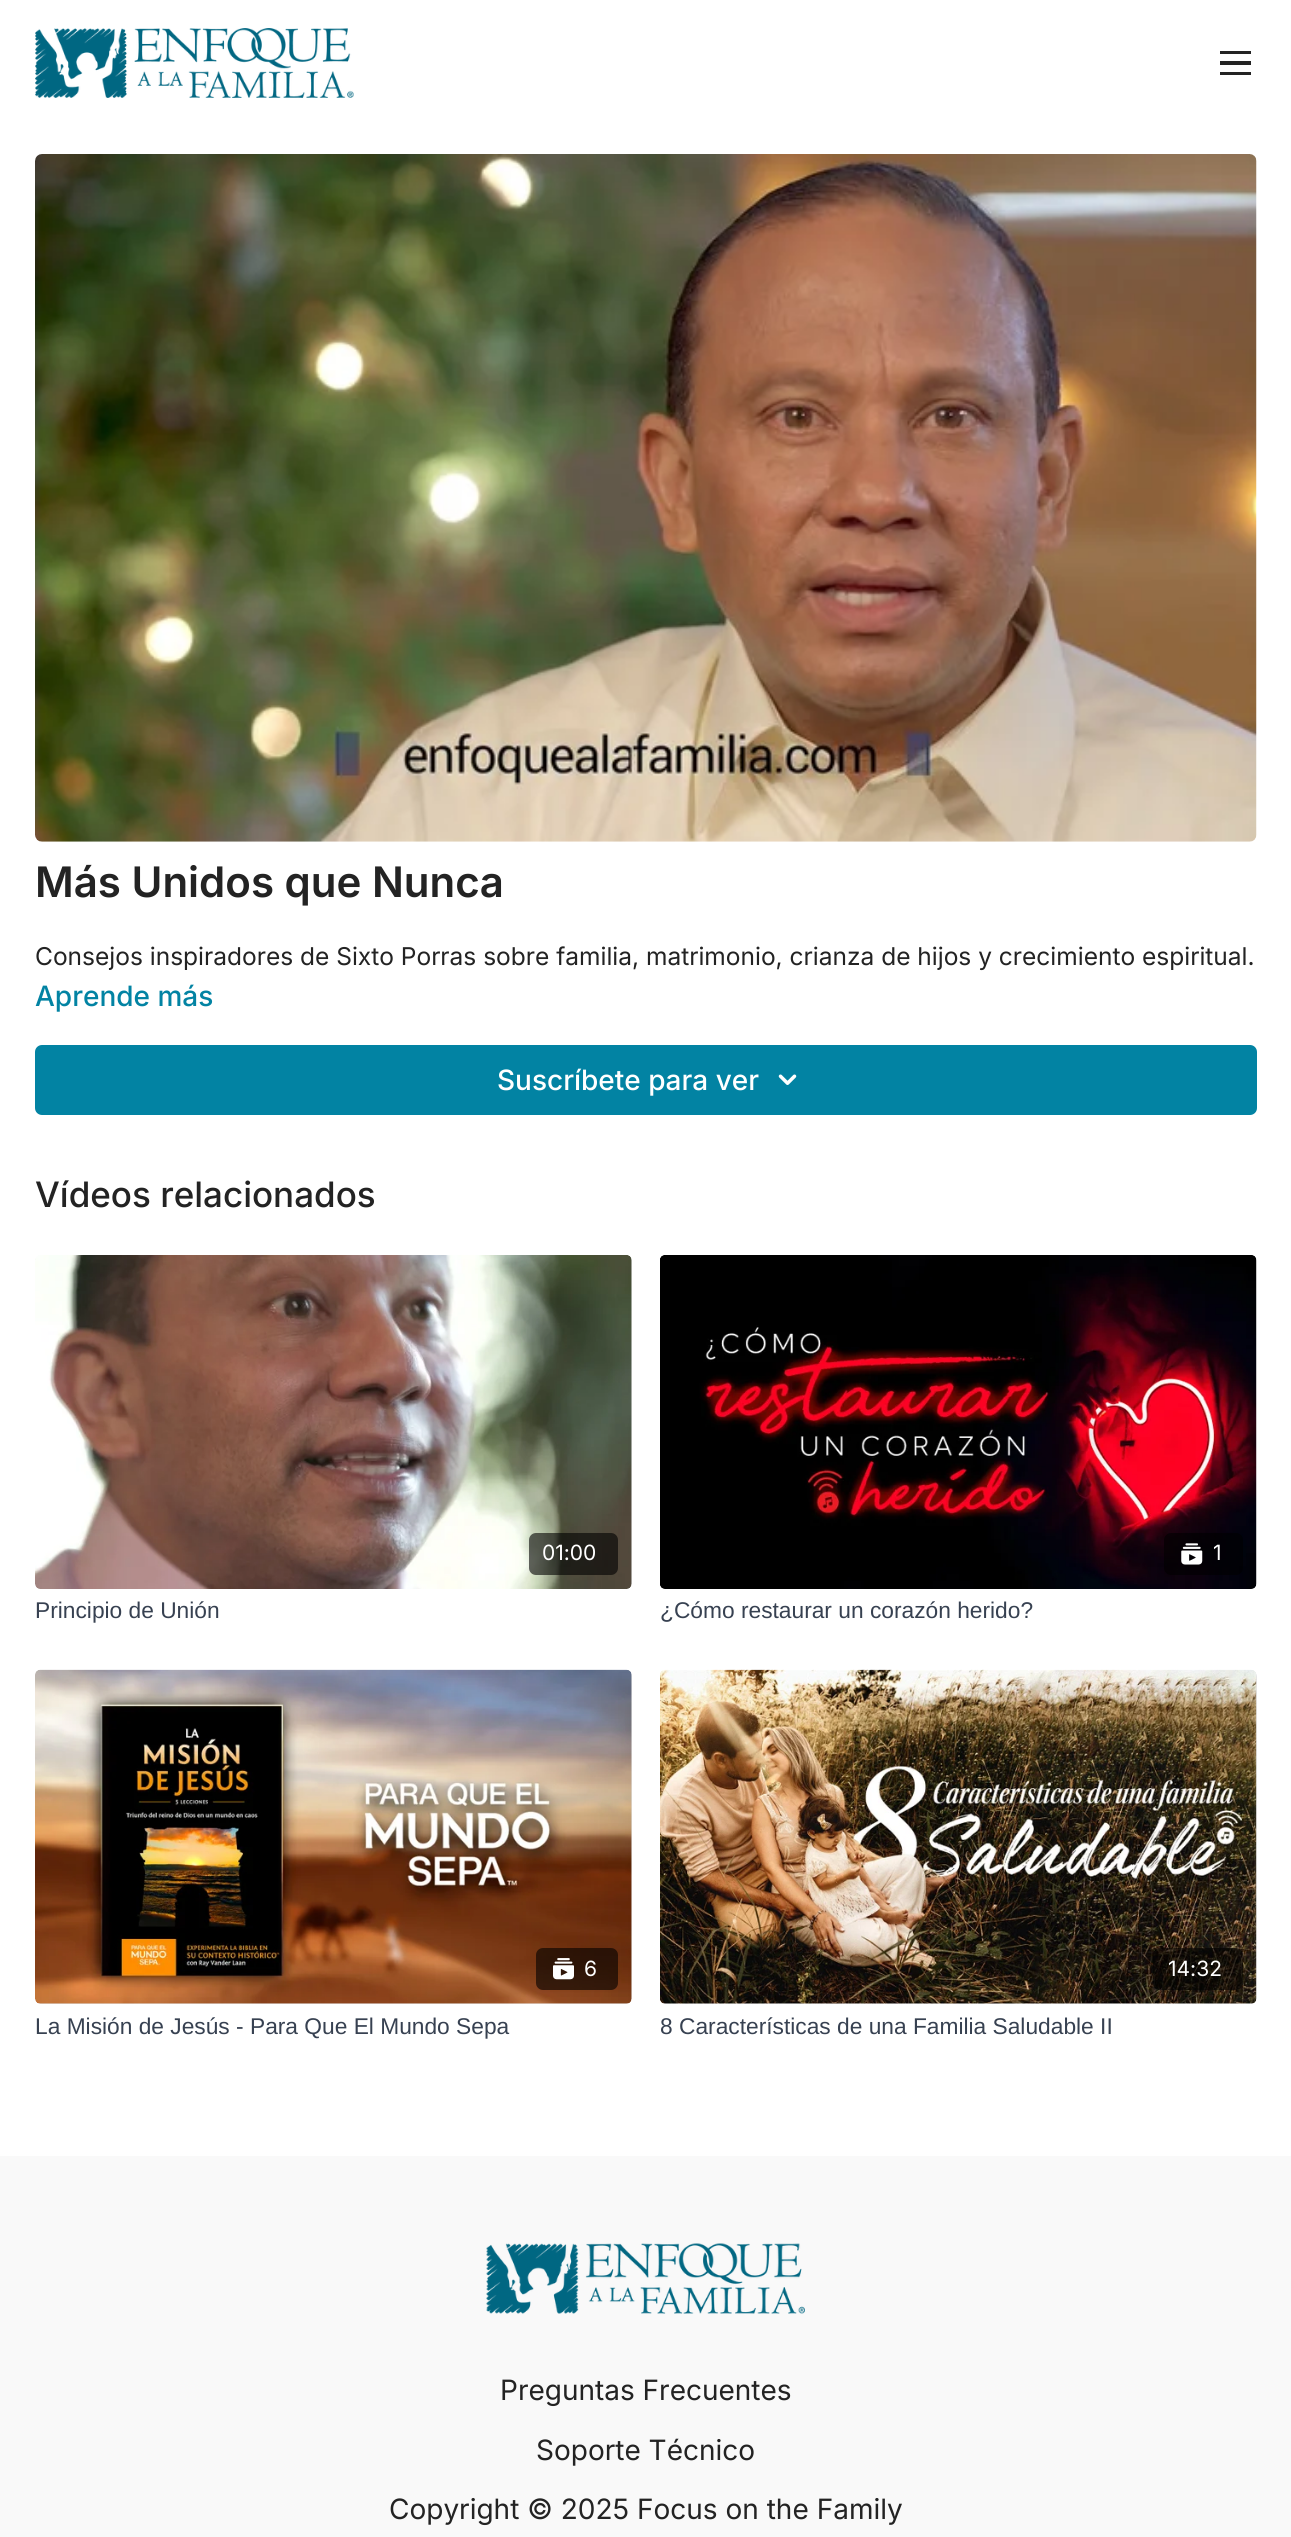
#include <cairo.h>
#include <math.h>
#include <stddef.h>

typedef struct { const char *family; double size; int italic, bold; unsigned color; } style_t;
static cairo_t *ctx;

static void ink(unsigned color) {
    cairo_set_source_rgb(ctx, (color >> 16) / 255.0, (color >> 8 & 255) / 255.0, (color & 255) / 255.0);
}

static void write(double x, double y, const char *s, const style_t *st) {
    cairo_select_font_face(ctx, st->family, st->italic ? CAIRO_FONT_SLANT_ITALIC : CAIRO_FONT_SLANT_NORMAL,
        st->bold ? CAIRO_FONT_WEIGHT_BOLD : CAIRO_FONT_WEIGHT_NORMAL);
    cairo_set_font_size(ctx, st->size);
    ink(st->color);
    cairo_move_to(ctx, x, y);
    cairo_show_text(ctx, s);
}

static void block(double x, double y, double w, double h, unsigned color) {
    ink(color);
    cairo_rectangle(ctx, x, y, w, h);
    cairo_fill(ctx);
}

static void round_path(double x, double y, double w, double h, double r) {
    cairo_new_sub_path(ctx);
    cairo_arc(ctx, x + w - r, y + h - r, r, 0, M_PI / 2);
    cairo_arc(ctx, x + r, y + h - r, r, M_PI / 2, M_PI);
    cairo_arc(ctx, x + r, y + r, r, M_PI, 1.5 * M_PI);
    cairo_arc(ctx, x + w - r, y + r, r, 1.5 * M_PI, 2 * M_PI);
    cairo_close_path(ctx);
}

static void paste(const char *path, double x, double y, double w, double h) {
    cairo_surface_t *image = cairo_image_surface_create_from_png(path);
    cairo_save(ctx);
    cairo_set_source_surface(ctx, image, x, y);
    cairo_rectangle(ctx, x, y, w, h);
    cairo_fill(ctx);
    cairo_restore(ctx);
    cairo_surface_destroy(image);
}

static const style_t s1 = {"Inter SemiBold", 42, 0, 0, 0x232323};
static const style_t s2 = {"Inter", 24.5, 0, 0, 0x232323};
static const style_t s3 = {"Inter Medium", 28, 0, 0, 0x0283a3};
static const style_t s4 = {"Inter Medium", 28, 0, 0, 0xffffff};
static const style_t s5 = {"Inter Medium", 35, 0, 0, 0x232323};
static const style_t s6 = {"Inter", 21, 0, 0, 0xffffff};
static const style_t s7 = {"Liberation Sans", 22.75, 0, 0, 0x374151};
static const style_t s8 = {"Inter", 28, 0, 0, 0x232323};

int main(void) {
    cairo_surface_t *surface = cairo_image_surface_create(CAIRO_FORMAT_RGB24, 1291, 2537);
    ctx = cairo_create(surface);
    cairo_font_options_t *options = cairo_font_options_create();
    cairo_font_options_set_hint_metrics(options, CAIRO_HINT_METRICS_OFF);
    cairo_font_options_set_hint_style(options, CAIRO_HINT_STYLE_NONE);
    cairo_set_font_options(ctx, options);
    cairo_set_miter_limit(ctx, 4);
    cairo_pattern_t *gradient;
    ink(0xffffff);
    cairo_paint(ctx);
    paste("pic1.png", 35, 28, 319, 70);
    block(1220, 51, 31, 3, 0x232323);
    block(1220, 61, 31, 4, 0x232323);
    block(1220, 72, 31, 3, 0x232323);
    paste("pic2.png", 35, 154, 1222, 688);
    write(35, 897, "Más Unidos que Nunca", &s1);
    write(35, 965, "Consejos inspiradores de Sixto Porras sobre familia, matrimonio, crianza de hijos y crecimiento espiritual.", &s2);
    write(35, 1006, "Aprende más", &s3);
    round_path(35, 1045, 1222, 70, 7);
    cairo_fill(ctx);
    write(497, 1090, "Suscríbete para ver", &s4);
    paste("pic3.png", 778, 1074, 19, 11);
    write(35, 1207, "Vídeos relacionados", &s5);
    gradient = cairo_pattern_create_linear(35, 1422, 632, 1422);
    cairo_pattern_add_color_stop_rgba(gradient, 0.08, 0.871, 0.871, 0.871, 1);
    cairo_pattern_add_color_stop_rgba(gradient, 0.18, 0.882, 0.882, 0.882, 1);
    cairo_pattern_add_color_stop_rgba(gradient, 0.33, 0.894, 0.894, 0.894, 1);
    cairo_set_source(ctx, gradient);
    cairo_pattern_destroy(gradient);
    round_path(35, 1255, 597, 334, 7);
    cairo_fill(ctx);
    paste("pic4.png", 35, 1255, 597, 334);
    cairo_set_source_rgba(ctx, 0, 0, 0, 0.6);
    round_path(529, 1533, 89, 42, 7);
    cairo_fill(ctx);
    write(542, 1560, "01:00", &s6);
    write(35, 1618, "Principio de Unión", &s7);
    gradient = cairo_pattern_create_linear(660, 1422, 1257, 1422);
    cairo_pattern_add_color_stop_rgba(gradient, 0.08, 0.871, 0.871, 0.871, 1);
    cairo_pattern_add_color_stop_rgba(gradient, 0.18, 0.882, 0.882, 0.882, 1);
    cairo_pattern_add_color_stop_rgba(gradient, 0.33, 0.894, 0.894, 0.894, 1);
    cairo_set_source(ctx, gradient);
    cairo_pattern_destroy(gradient);
    round_path(660, 1255, 597, 334, 7);
    cairo_fill(ctx);
    paste("pic5.png", 660, 1255, 597, 334);
    cairo_set_source_rgba(ctx, 0, 0, 0, 0.6);
    round_path(1164, 1533, 79, 42, 7);
    cairo_fill(ctx);
    paste("pic6.png", 1181, 1543, 22, 22);
    write(1213, 1560, "1", &s6);
    write(660, 1618, "¿Cómo restaurar un corazón herido?", &s7);
    gradient = cairo_pattern_create_linear(35, 1837, 632, 1837);
    cairo_pattern_add_color_stop_rgba(gradient, 0.08, 0.871, 0.871, 0.871, 1);
    cairo_pattern_add_color_stop_rgba(gradient, 0.18, 0.882, 0.882, 0.882, 1);
    cairo_pattern_add_color_stop_rgba(gradient, 0.33, 0.894, 0.894, 0.894, 1);
    cairo_set_source(ctx, gradient);
    cairo_pattern_destroy(gradient);
    round_path(35, 1670, 597, 334, 7);
    cairo_fill(ctx);
    paste("pic7.png", 35, 1669, 597, 335);
    cairo_set_source_rgba(ctx, 0, 0, 0, 0.6);
    round_path(536, 1948, 82, 42, 7);
    cairo_fill(ctx);
    paste("pic8.png", 553, 1958, 21, 22);
    write(584, 1976, "6", &s6);
    write(35, 2034, "La Misión de Jesús - Para Que El Mundo Sepa", &s7);
    gradient = cairo_pattern_create_linear(660, 1837, 1257, 1837);
    cairo_pattern_add_color_stop_rgba(gradient, 0.08, 0.871, 0.871, 0.871, 1);
    cairo_pattern_add_color_stop_rgba(gradient, 0.18, 0.882, 0.882, 0.882, 1);
    cairo_pattern_add_color_stop_rgba(gradient, 0.33, 0.894, 0.894, 0.894, 1);
    cairo_set_source(ctx, gradient);
    cairo_pattern_destroy(gradient);
    round_path(660, 1670, 597, 334, 7);
    cairo_fill(ctx);
    paste("pic9.png", 660, 1669, 597, 335);
    cairo_set_source_rgba(ctx, 0, 0, 0, 0.6);
    round_path(1153, 1948, 90, 42, 7);
    cairo_fill(ctx);
    write(1168, 1976, "14:32", &s6);
    write(660, 2034, "8 Características de una Familia Saludable II", &s7);
    block(0, 2156, 1291, 381, 0xf9f9f9);
    paste("pic10.png", 486, 2243, 319, 71);
    write(500, 2400, "Preguntas Frecuentes", &s8);
    write(536, 2460, "Soporte Técnico", &s8);
    write(389, 2519, "Copyright © 2025 Focus on the Family", &s8);
    cairo_surface_write_to_png(surface, "screenshot.png");
    cairo_font_options_destroy(options);
    cairo_destroy(ctx);
    cairo_surface_destroy(surface);
    return 0;
}
